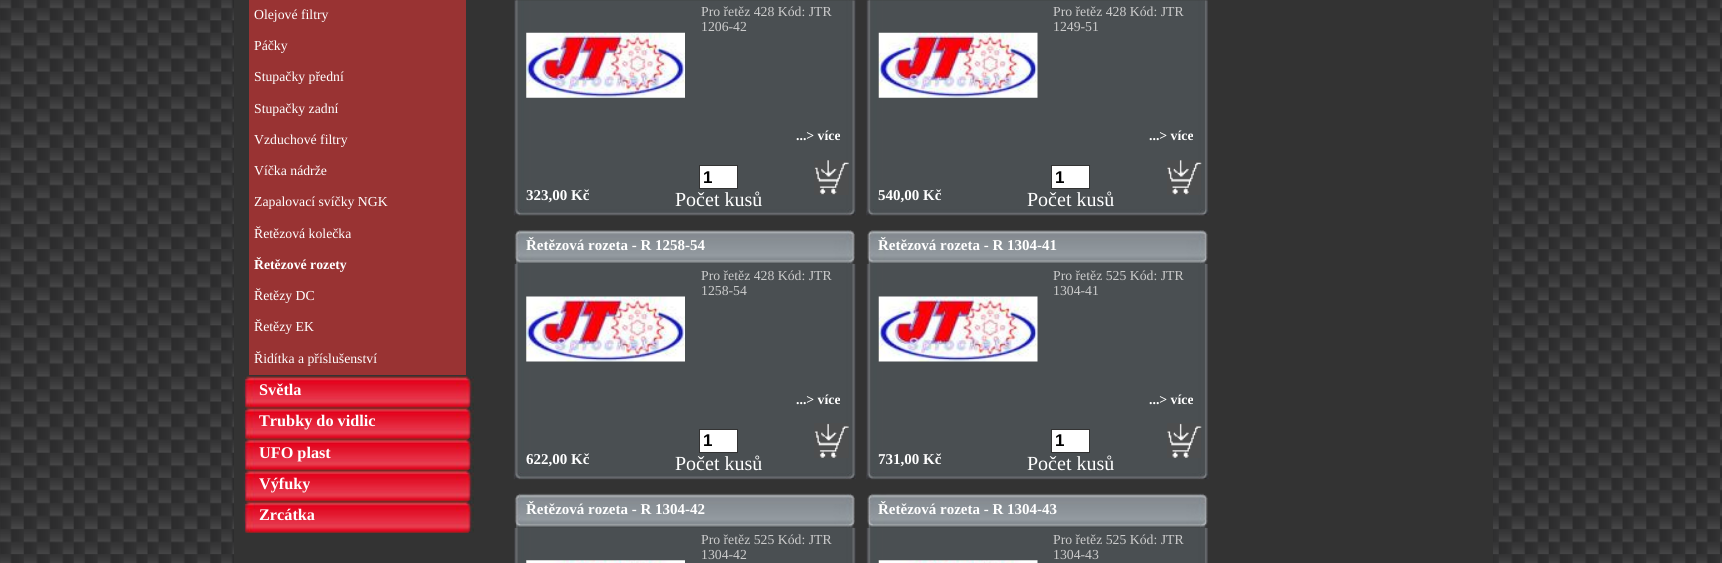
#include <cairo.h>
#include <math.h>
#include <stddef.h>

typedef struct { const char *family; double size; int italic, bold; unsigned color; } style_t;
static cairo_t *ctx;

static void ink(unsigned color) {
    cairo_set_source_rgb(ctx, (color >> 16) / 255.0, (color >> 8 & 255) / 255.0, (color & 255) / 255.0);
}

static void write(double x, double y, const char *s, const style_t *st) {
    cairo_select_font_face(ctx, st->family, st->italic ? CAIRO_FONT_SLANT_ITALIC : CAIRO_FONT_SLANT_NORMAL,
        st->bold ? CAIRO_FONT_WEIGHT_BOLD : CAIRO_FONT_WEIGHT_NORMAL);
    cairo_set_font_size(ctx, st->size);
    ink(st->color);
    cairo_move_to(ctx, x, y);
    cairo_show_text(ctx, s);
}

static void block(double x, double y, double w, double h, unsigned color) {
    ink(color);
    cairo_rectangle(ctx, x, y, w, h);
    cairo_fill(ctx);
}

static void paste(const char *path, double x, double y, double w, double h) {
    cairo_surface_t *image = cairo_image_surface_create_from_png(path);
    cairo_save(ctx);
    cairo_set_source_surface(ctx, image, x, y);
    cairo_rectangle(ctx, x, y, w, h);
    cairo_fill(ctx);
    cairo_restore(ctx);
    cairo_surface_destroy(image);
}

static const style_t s1 = {"Liberation Serif", 13.75, 0, 0, 0xffffff};
static const style_t s2 = {"Liberation Serif", 13.75, 0, 1, 0xffffff};
static const style_t s3 = {"Liberation Serif", 16.25, 0, 1, 0xffffff};
static const style_t s4 = {"Liberation Serif", 13.75, 0, 0, 0xcccccc};
static const style_t s5 = {"Liberation Serif", 15, 0, 1, 0xffffff};
static const style_t s6 = {"Liberation Sans", 17, 0, 1, 0x000000};
static const style_t s7 = {"Liberation Serif", 20, 0, 0, 0xffffff};

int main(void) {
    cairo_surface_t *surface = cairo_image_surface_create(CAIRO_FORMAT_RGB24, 1722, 563);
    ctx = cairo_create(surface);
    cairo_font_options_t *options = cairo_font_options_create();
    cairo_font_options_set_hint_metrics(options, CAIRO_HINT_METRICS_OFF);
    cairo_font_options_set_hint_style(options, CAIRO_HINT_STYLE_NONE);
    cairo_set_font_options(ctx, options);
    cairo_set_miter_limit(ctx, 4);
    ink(0xffffff);
    cairo_paint(ctx);
    paste("pic1.png", 0, 0, 1722, 563);
    block(234, 0, 1259, 563, 0x333333);
    block(249, 0, 217, 375, 0x993333);
    write(254, 19, "Olejové filtry", &s1);
    write(254, 50, "Páčky", &s1);
    write(254, 81, "Stupačky přední", &s1);
    write(254, 113, "Stupačky zadní", &s1);
    write(254, 144, "Vzduchové filtry", &s1);
    write(254, 175, "Víčka nádrže", &s1);
    write(254, 206, "Zapalovací svíčky NGK", &s1);
    write(254, 238, "Řetězová kolečka", &s1);
    write(254, 269, "Řetězové rozety", &s2);
    write(254, 300, "Řetězy DC", &s1);
    write(254, 331, "Řetězy EK", &s1);
    write(254, 363, "Řidítka a příslušenství", &s1);
    paste("pic2.png", 243, 376, 231, 32);
    write(259, 395, "Světla", &s3);
    paste("pic3.png", 243, 407, 231, 32);
    write(259, 426, "Trubky do vidlic", &s3);
    paste("pic4.png", 243, 439, 231, 32);
    write(259, 458, "UFO plast", &s3);
    paste("pic5.png", 243, 470, 231, 32);
    write(259, 489, "Výfuky", &s3);
    paste("pic6.png", 243, 501, 231, 32);
    write(259, 520, "Zrcátka", &s3);
    paste("pic7.png", 513, 207, 343, 9);
    paste("pic10.png", 514, 0, 342, 209);
    paste("pic8.png", 515, 0, 340, 1);
    paste("pic9.png", 526, 32, 159, 66);
    write(701, 16, "Pro řetěz 428 Kód: JTR", &s4);
    write(701, 31, "1206-42", &s4);
    write(796, 140, "...> více", &s2);
    write(526, 200, "323,00 Kč", &s5);
    cairo_rectangle(ctx, 699.5, 165.5, 38, 23);
    cairo_fill_preserve(ctx);
    ink(0x333333);
    cairo_set_line_width(ctx, 1);
    cairo_stroke(ctx);
    write(703, 183, "1", &s6);
    write(675, 206, "Počet kusů", &s7);
    paste("pic11.png", 814, 160, 35, 35);
    paste("pic12.png", 866, 207, 343, 9);
    paste("pic15.png", 866, 0, 342, 209);
    paste("pic13.png", 867, 0, 341, 1);
    paste("pic14.png", 878, 32, 160, 66);
    write(1053, 16, "Pro řetěz 428 Kód: JTR", &s4);
    write(1053, 31, "1249-51", &s4);
    write(1149, 140, "...> více", &s2);
    write(878, 200, "540,00 Kč", &s5);
    cairo_rectangle(ctx, 1051.5, 165.5, 38, 23);
    cairo_fill_preserve(ctx);
    ink(0x333333);
    cairo_stroke(ctx);
    write(1055, 183, "1", &s6);
    write(1027, 206, "Počet kusů", &s7);
    paste("pic16.png", 1167, 160, 35, 35);
    paste("pic17.png", 513, 471, 343, 9);
    paste("pic18.png", 514, 230, 341, 34);
    write(526, 250, "Řetězová rozeta - R 1258-54", &s5);
    paste("pic20.png", 514, 264, 342, 208);
    paste("pic19.png", 526, 296, 159, 66);
    write(701, 280, "Pro řetěz 428 Kód: JTR", &s4);
    write(701, 295, "1258-54", &s4);
    write(796, 404, "...> více", &s2);
    write(526, 464, "622,00 Kč", &s5);
    cairo_rectangle(ctx, 699.5, 429.5, 38, 23);
    cairo_fill_preserve(ctx);
    ink(0x333333);
    cairo_stroke(ctx);
    write(703, 446, "1", &s6);
    write(675, 470, "Počet kusů", &s7);
    paste("pic21.png", 814, 423, 35, 35);
    paste("pic22.png", 866, 471, 343, 9);
    paste("pic23.png", 867, 230, 341, 34);
    write(878, 250, "Řetězová rozeta - R 1304-41", &s5);
    paste("pic25.png", 866, 264, 342, 208);
    paste("pic24.png", 878, 296, 160, 66);
    write(1053, 280, "Pro řetěz 525 Kód: JTR", &s4);
    write(1053, 295, "1304-41", &s4);
    write(1149, 404, "...> více", &s2);
    write(878, 464, "731,00 Kč", &s5);
    cairo_rectangle(ctx, 1051.5, 429.5, 38, 23);
    cairo_fill_preserve(ctx);
    ink(0x333333);
    cairo_stroke(ctx);
    write(1055, 446, "1", &s6);
    write(1027, 470, "Počet kusů", &s7);
    paste("pic26.png", 1167, 423, 35, 35);
    paste("pic28.png", 514, 527, 342, 36);
    paste("pic27.png", 514, 493, 341, 35);
    write(526, 514, "Řetězová rozeta - R 1304-42", &s5);
    write(701, 544, "Pro řetěz 525 Kód: JTR", &s4);
    write(701, 559, "1304-42", &s4);
    paste("pic29.png", 526, 560, 159, 3);
    paste("pic31.png", 866, 527, 342, 36);
    paste("pic30.png", 867, 493, 341, 35);
    write(878, 514, "Řetězová rozeta - R 1304-43", &s5);
    write(1053, 544, "Pro řetěz 525 Kód: JTR", &s4);
    write(1053, 559, "1304-43", &s4);
    paste("pic32.png", 878, 560, 160, 3);
    cairo_surface_write_to_png(surface, "screenshot.png");
    cairo_font_options_destroy(options);
    cairo_destroy(ctx);
    cairo_surface_destroy(surface);
    return 0;
}
